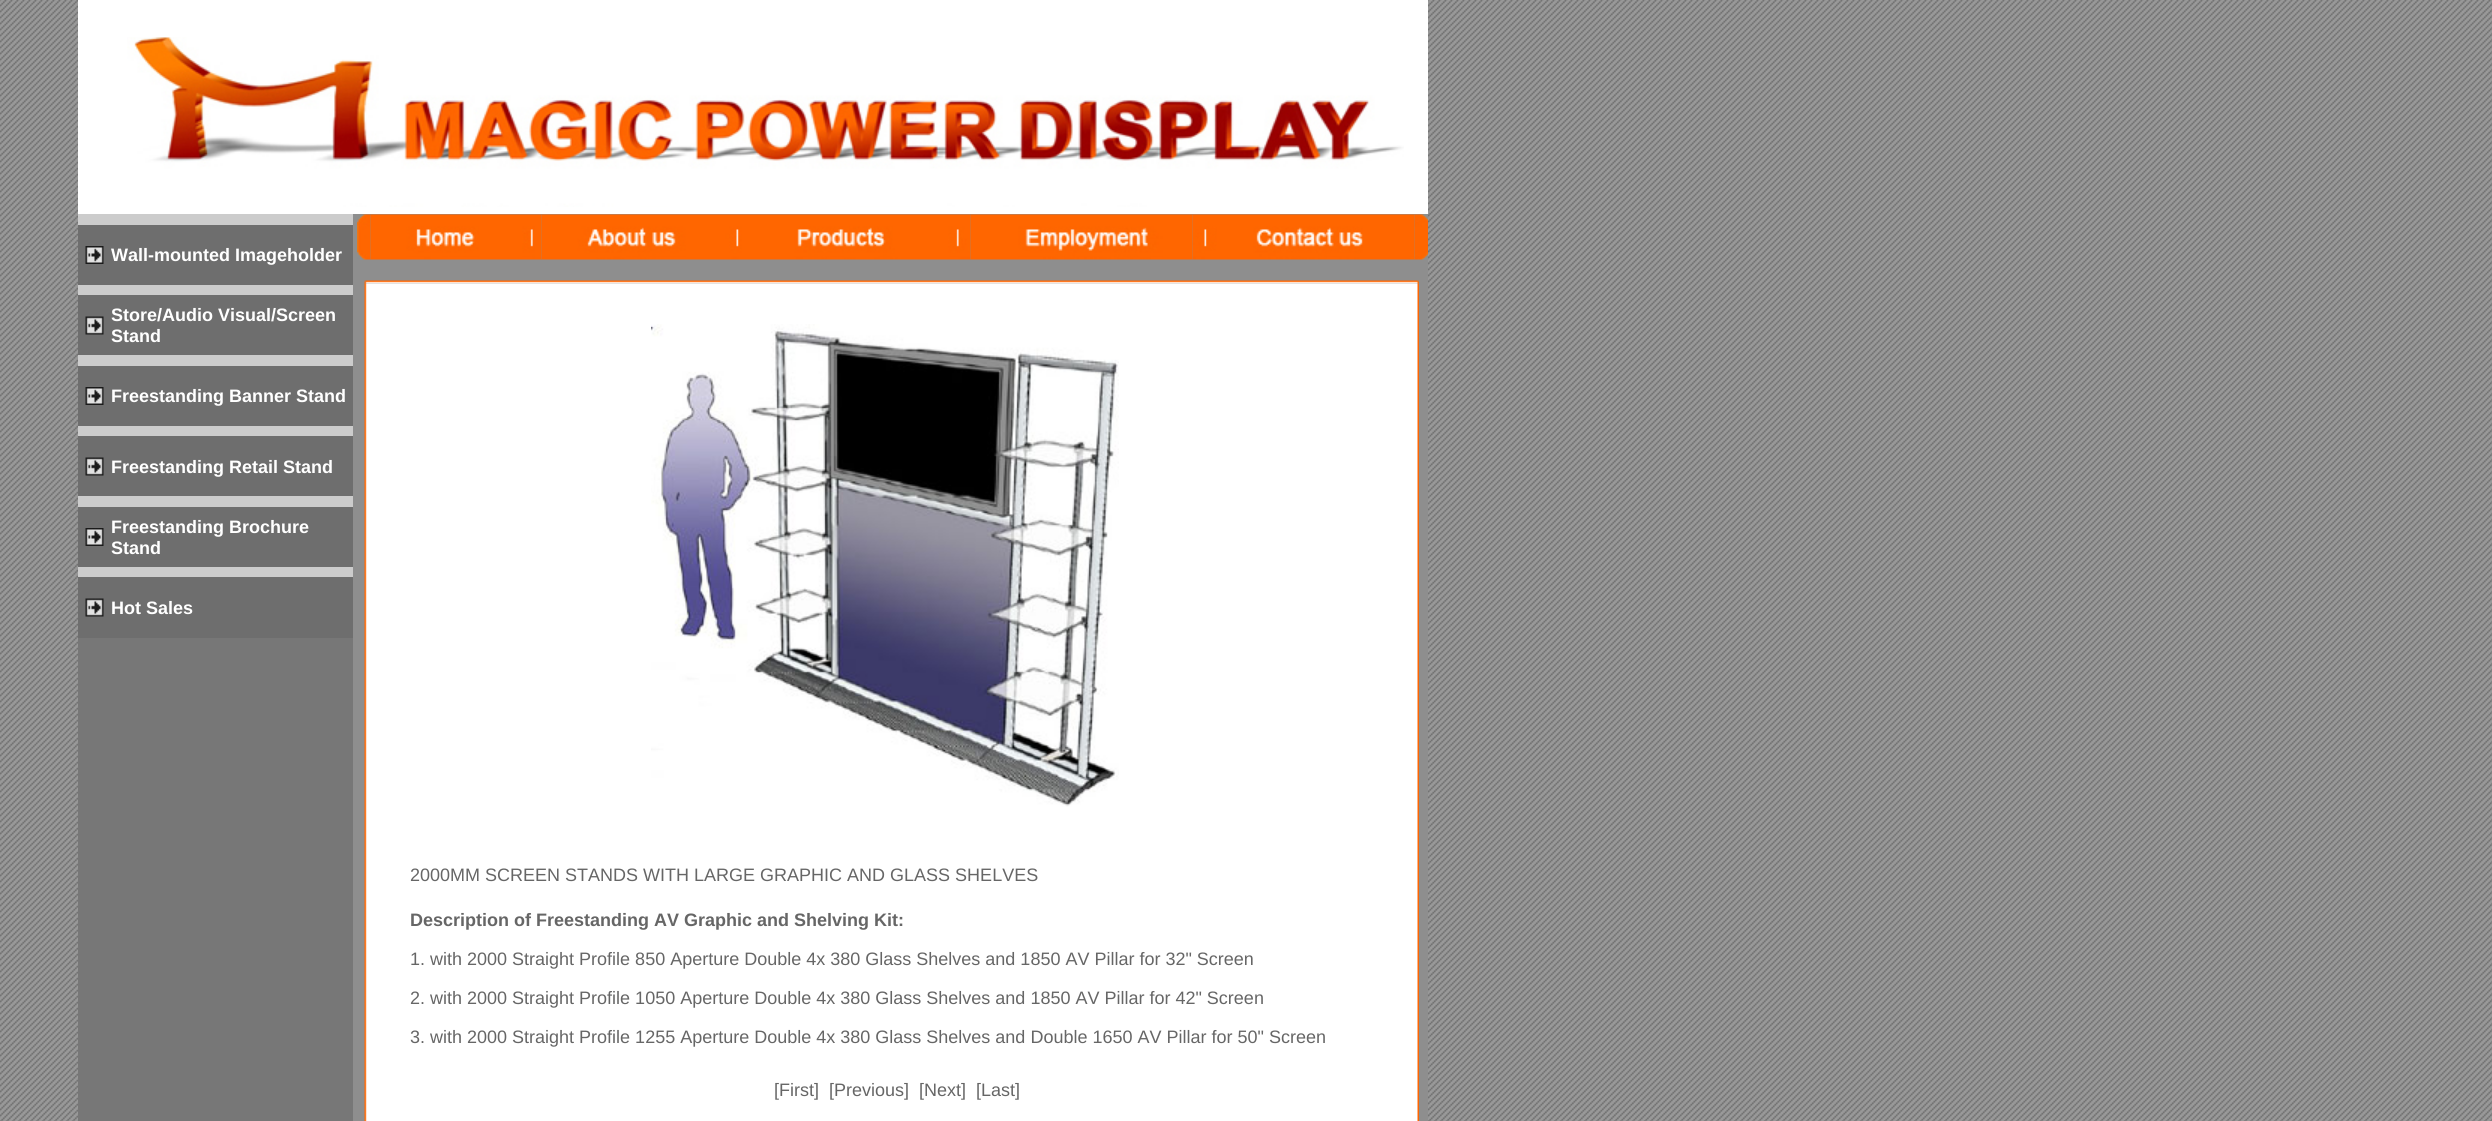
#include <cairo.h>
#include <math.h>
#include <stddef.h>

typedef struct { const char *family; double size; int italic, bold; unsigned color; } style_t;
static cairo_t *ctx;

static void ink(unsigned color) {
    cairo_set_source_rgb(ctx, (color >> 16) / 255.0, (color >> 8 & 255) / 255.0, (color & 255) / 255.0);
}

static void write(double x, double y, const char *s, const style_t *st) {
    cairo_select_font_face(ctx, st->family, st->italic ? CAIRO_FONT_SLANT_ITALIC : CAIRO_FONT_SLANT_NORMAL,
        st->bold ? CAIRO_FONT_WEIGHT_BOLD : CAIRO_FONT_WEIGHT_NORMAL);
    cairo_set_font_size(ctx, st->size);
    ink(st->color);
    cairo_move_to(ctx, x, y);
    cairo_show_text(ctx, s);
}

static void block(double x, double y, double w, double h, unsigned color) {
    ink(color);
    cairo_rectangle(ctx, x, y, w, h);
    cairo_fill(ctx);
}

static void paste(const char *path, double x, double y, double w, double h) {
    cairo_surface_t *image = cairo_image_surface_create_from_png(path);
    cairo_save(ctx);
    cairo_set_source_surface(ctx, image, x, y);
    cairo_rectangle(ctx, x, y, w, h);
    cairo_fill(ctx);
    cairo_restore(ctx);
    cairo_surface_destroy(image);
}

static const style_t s1 = {"Liberation Sans", 18, 0, 1, 0xffffff};
static const style_t s2 = {"Liberation Sans", 18, 0, 0, 0x666666};
static const style_t s3 = {"Liberation Sans", 18, 0, 1, 0x666666};

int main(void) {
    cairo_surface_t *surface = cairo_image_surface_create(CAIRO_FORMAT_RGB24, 2492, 1121);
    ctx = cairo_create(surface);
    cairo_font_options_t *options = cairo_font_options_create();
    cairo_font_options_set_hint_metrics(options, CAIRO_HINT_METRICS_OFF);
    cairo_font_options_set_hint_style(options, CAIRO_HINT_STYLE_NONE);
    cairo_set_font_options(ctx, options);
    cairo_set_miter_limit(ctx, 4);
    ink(0xffffff);
    cairo_paint(ctx);
    paste("pic1.png", 0, 0, 2492, 1121);
    block(78, 0, 1350, 214, 0xffffff);
    paste("pic2.png", 127, 37, 1277, 170);
    block(353, 214, 1075, 907, 0x8e8e8e);
    block(78, 638, 275, 483, 0x777777);
    block(78, 214, 275, 11, 0xcccccc);
    block(78, 225, 275, 60, 0x6e6e6e);
    paste("pic3.png", 85, 246, 19, 18);
    write(111, 261, "Wall-mounted Imageholder", &s1);
    block(78, 285, 275, 10, 0xcccccc);
    block(78, 295, 275, 60, 0x6e6e6e);
    paste("pic4.png", 85, 316, 19, 19);
    write(111, 321, "Store/Audio Visual/Screen", &s1);
    write(111, 342, "Stand", &s1);
    block(78, 355, 275, 11, 0xcccccc);
    block(78, 366, 275, 60, 0x6e6e6e);
    paste("pic3.png", 85, 387, 19, 18);
    write(111, 402, "Freestanding Banner Stand", &s1);
    block(78, 426, 275, 10, 0xcccccc);
    block(78, 436, 275, 60, 0x6e6e6e);
    paste("pic4.png", 85, 457, 19, 19);
    write(111, 473, "Freestanding Retail Stand", &s1);
    block(78, 496, 275, 11, 0xcccccc);
    block(78, 507, 275, 60, 0x6e6e6e);
    paste("pic3.png", 85, 528, 19, 18);
    write(111, 533, "Freestanding Brochure", &s1);
    write(111, 554, "Stand", &s1);
    block(78, 567, 275, 10, 0xcccccc);
    block(78, 577, 275, 61, 0x6e6e6e);
    paste("pic4.png", 85, 598, 19, 19);
    write(111, 614, "Hot Sales", &s1);
    paste("pic5.png", 357, 214, 14, 46);
    paste("pic6.png", 370, 214, 152, 46);
    paste("pic7.png", 522, 214, 20, 46);
    paste("pic8.png", 541, 214, 188, 46);
    paste("pic9.png", 729, 214, 18, 46);
    paste("pic10.png", 747, 214, 201, 46);
    paste("pic11.png", 948, 214, 23, 46);
    paste("pic12.png", 970, 214, 223, 46);
    paste("pic13.png", 1192, 214, 26, 46);
    paste("pic14.png", 1218, 214, 197, 46);
    paste("pic15.png", 1414, 214, 14, 46);
    paste("pic17.png", 364, 283, 1055, 838);
    paste("pic16.png", 364, 280, 1055, 4);
    paste("pic18.png", 651, 324, 468, 483);
    write(410, 881, "2000MM SCREEN STANDS WITH LARGE GRAPHIC AND GLASS SHELVES", &s2);
    write(410, 926, "Description of Freestanding AV Graphic and Shelving Kit:", &s3);
    write(410, 965, "1. with 2000 Straight Profile 850 Aperture Double 4x 380 Glass Shelves and 1850 AV Pillar for 32\" Screen", &s2);
    write(410, 1004, "2. with 2000 Straight Profile 1050 Aperture Double 4x 380 Glass Shelves and 1850 AV Pillar for 42\" Screen", &s2);
    write(410, 1043, "3. with 2000 Straight Profile 1255 Aperture Double 4x 380 Glass Shelves and Double 1650 AV Pillar for 50\" Screen", &s2);
    write(774, 1096, "[First]  [Previous]  [Next]  [Last]", &s2);
    cairo_surface_write_to_png(surface, "screenshot.png");
    cairo_font_options_destroy(options);
    cairo_destroy(ctx);
    cairo_surface_destroy(surface);
    return 0;
}
